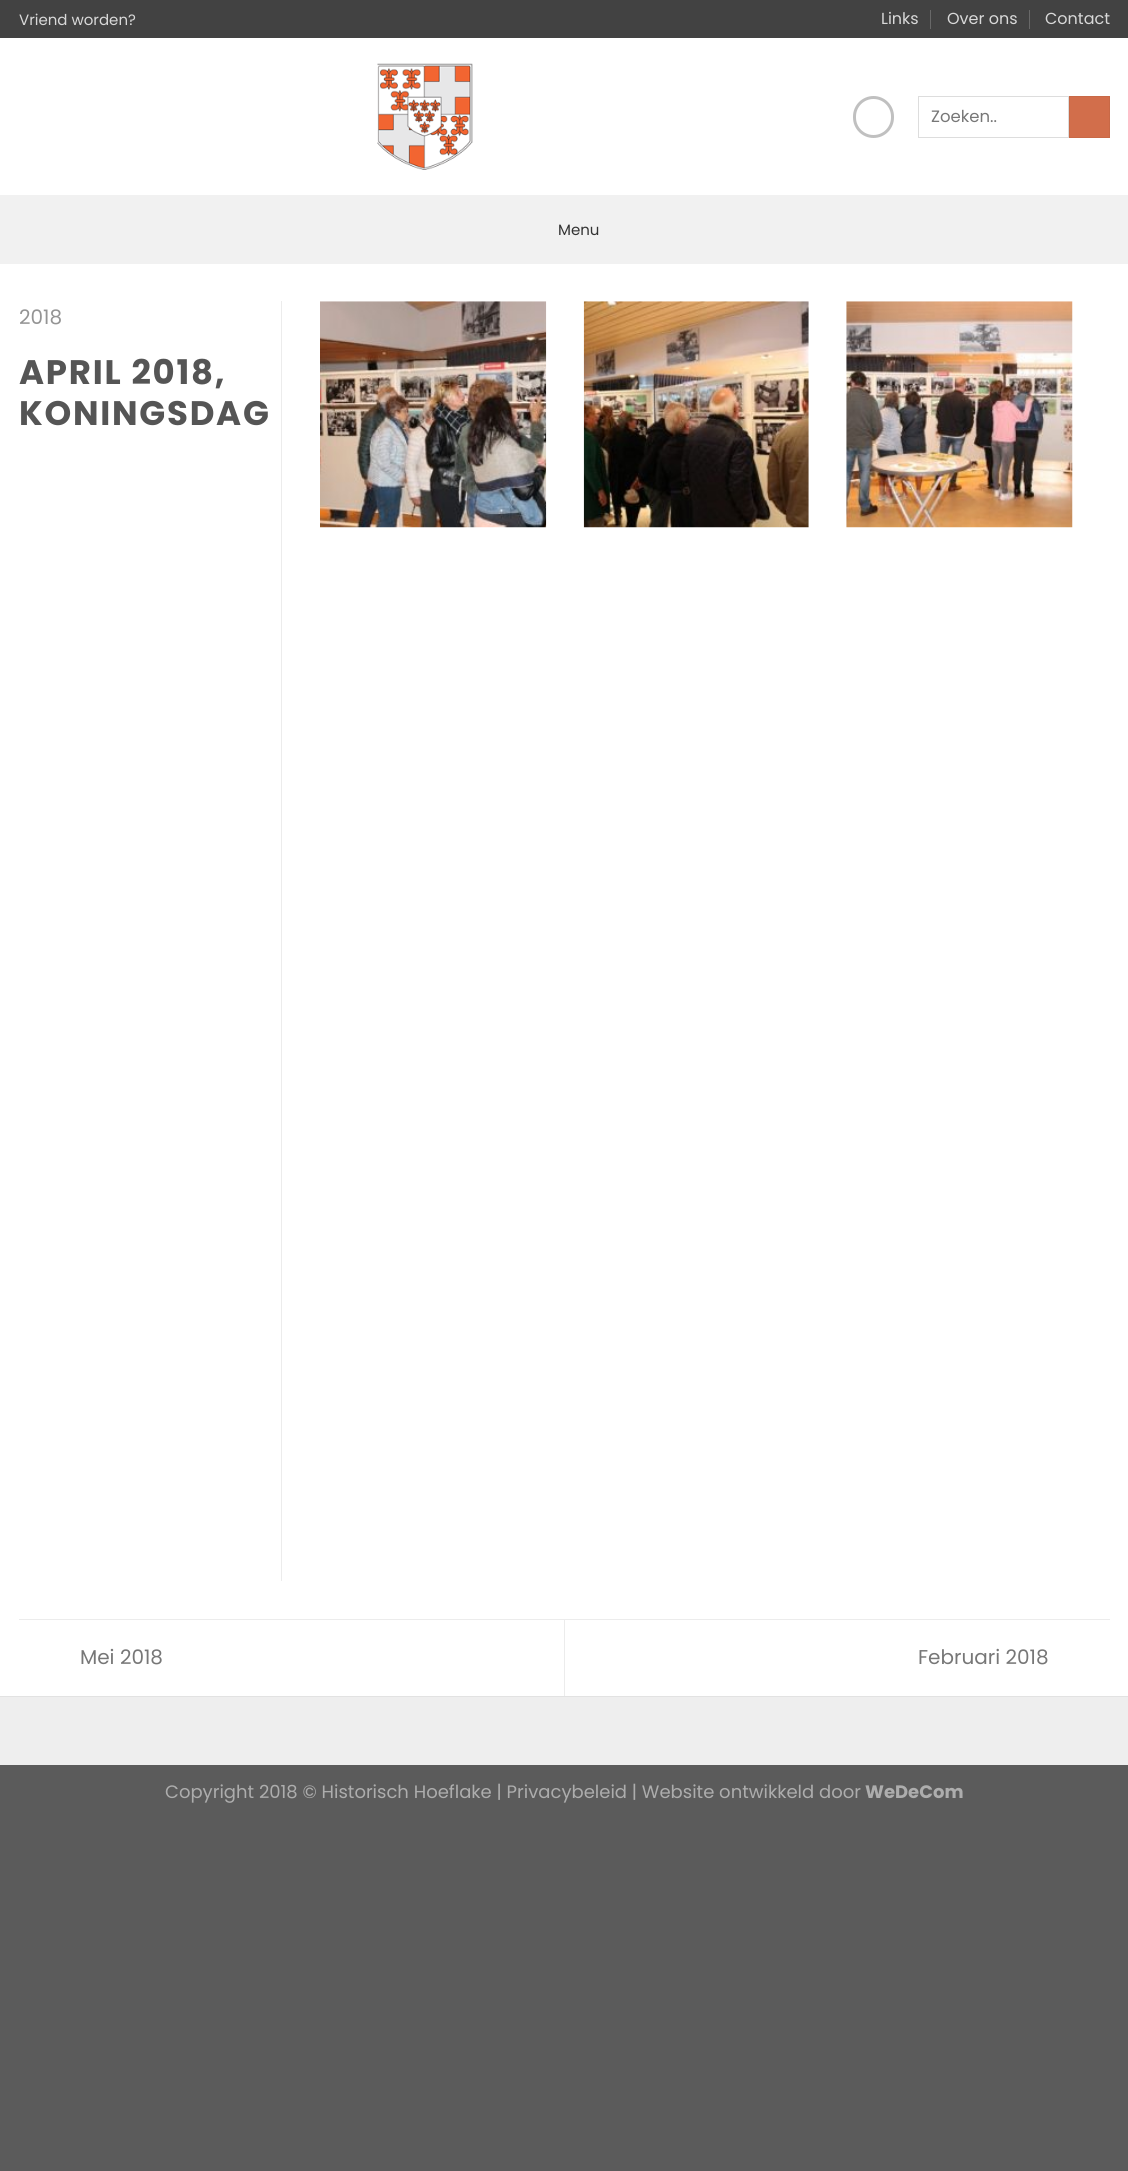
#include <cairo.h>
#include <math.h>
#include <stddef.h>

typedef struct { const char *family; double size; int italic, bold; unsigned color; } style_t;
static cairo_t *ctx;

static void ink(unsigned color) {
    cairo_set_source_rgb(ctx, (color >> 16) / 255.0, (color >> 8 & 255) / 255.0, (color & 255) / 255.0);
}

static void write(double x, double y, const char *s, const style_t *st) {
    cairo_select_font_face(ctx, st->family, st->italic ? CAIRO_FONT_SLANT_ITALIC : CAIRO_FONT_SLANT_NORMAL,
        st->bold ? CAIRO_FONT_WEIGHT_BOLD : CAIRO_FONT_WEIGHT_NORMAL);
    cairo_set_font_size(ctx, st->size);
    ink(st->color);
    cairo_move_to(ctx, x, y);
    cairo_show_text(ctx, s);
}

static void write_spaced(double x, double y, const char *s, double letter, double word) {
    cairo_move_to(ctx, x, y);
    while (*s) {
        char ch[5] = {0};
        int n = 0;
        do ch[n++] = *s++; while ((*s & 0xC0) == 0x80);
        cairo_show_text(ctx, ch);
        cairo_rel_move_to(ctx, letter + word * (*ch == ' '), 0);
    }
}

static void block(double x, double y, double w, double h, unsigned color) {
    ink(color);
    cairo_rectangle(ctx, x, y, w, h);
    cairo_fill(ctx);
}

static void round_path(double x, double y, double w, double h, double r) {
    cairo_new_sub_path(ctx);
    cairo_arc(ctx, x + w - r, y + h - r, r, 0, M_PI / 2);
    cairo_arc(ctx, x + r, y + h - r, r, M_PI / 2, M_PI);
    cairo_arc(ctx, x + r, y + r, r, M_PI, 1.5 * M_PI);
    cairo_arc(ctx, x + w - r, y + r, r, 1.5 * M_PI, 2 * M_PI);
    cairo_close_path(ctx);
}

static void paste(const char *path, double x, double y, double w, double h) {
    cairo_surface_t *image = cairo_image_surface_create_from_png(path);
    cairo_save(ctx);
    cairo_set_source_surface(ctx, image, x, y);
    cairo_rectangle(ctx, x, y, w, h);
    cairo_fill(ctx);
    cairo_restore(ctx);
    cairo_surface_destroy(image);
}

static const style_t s1 = {"Poppins", 15, 0, 0, 0xd9d9d9};
static const style_t s2 = {"Poppins", 16, 0, 0, 0xd9d9d9};
static const style_t s3 = {"Poppins", 16.5, 0, 0, 0x777777};
static const style_t s4 = {"Poppins", 15, 0, 0, 0x333333};
static const style_t s5 = {"Poppins", 20, 0, 0, 0x949494};
static const style_t s6 = {"Poppins", 20, 0, 0, 0x777777};
static const style_t s7 = {"Poppins", 18, 0, 0, 0xadadad};
static const style_t s8 = {"Poppins", 18, 0, 1, 0xadadad};

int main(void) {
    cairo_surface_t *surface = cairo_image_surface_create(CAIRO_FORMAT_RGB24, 1128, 2171);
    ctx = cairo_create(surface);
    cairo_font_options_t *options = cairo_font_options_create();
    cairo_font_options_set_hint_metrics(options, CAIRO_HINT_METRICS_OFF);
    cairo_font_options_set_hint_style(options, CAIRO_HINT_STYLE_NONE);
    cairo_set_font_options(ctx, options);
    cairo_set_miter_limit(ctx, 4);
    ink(0x5b5b5b);
    cairo_paint(ctx);
    block(0, 38, 1128, 1658, 0xffffff);
    block(0, 0, 1128, 38, 0x424242);
    write(19, 25, "Vriend worden?", &s1);
    write(881, 24, "Links", &s2);
    block(930, 10, 1, 19, 0x686868);
    write(947, 24, "Over ons", &s2);
    block(1029, 10, 1, 19, 0x686868);
    write(1045, 24, "Contact", &s2);
    paste("pic1.png", 377, 63, 96, 107);
    round_path(854.5, 97.5, 38, 39, 19);
    ink(0xc0c0c0);
    cairo_set_line_width(ctx, 3);
    cairo_stroke(ctx);
    cairo_rectangle(ctx, 918.5, 96.5, 150, 41);
    ink(0xdddddd);
    cairo_set_line_width(ctx, 1);
    cairo_stroke(ctx);
    write(931, 122, "Zoeken..", &s3);
    ink(0xd26e4b);
    cairo_rectangle(ctx, 1069.5, 96.5, 40, 41);
    cairo_fill_preserve(ctx);
    ink(0xc86947);
    cairo_stroke(ctx);
    block(0, 195, 1128, 69, 0xf1f1f1);
    write(558, 235, "Menu", &s4);
    block(281, 301, 1, 1280, 0xececec);
    write(19, 324, "2018", &s5);
    cairo_select_font_face(ctx, "Poppins", CAIRO_FONT_SLANT_NORMAL, CAIRO_FONT_WEIGHT_BOLD);
    cairo_set_font_size(ctx, 34);
    ink(0x555555);
    write_spaced(19, 384, "APRIL 2018,", 1.75, 0);
    write_spaced(19, 425, "KONINGSDAG", 1.75, 0);
    paste("pic2.png", 320, 301, 227, 227);
    paste("pic3.png", 583, 301, 226, 227);
    paste("pic4.png", 846, 301, 227, 227);
    block(19, 1619, 1091, 1, 0xececec);
    write(80, 1664, "Mei 2018", &s6);
    block(564, 1620, 1, 76, 0xececec);
    write(918, 1664, "Februari 2018", &s6);
    block(0, 1697, 1128, 68, 0xeeeeee);
    block(0, 1696, 1128, 1, 0xe2e2e2);
    write(165, 1798, "Copyright 2018 © Historisch Hoeflake | Privacybeleid | Website ontwikkeld door", &s7);
    write(865, 1798, "WeDeCom", &s8);
    cairo_surface_write_to_png(surface, "screenshot.png");
    cairo_font_options_destroy(options);
    cairo_destroy(ctx);
    cairo_surface_destroy(surface);
    return 0;
}
